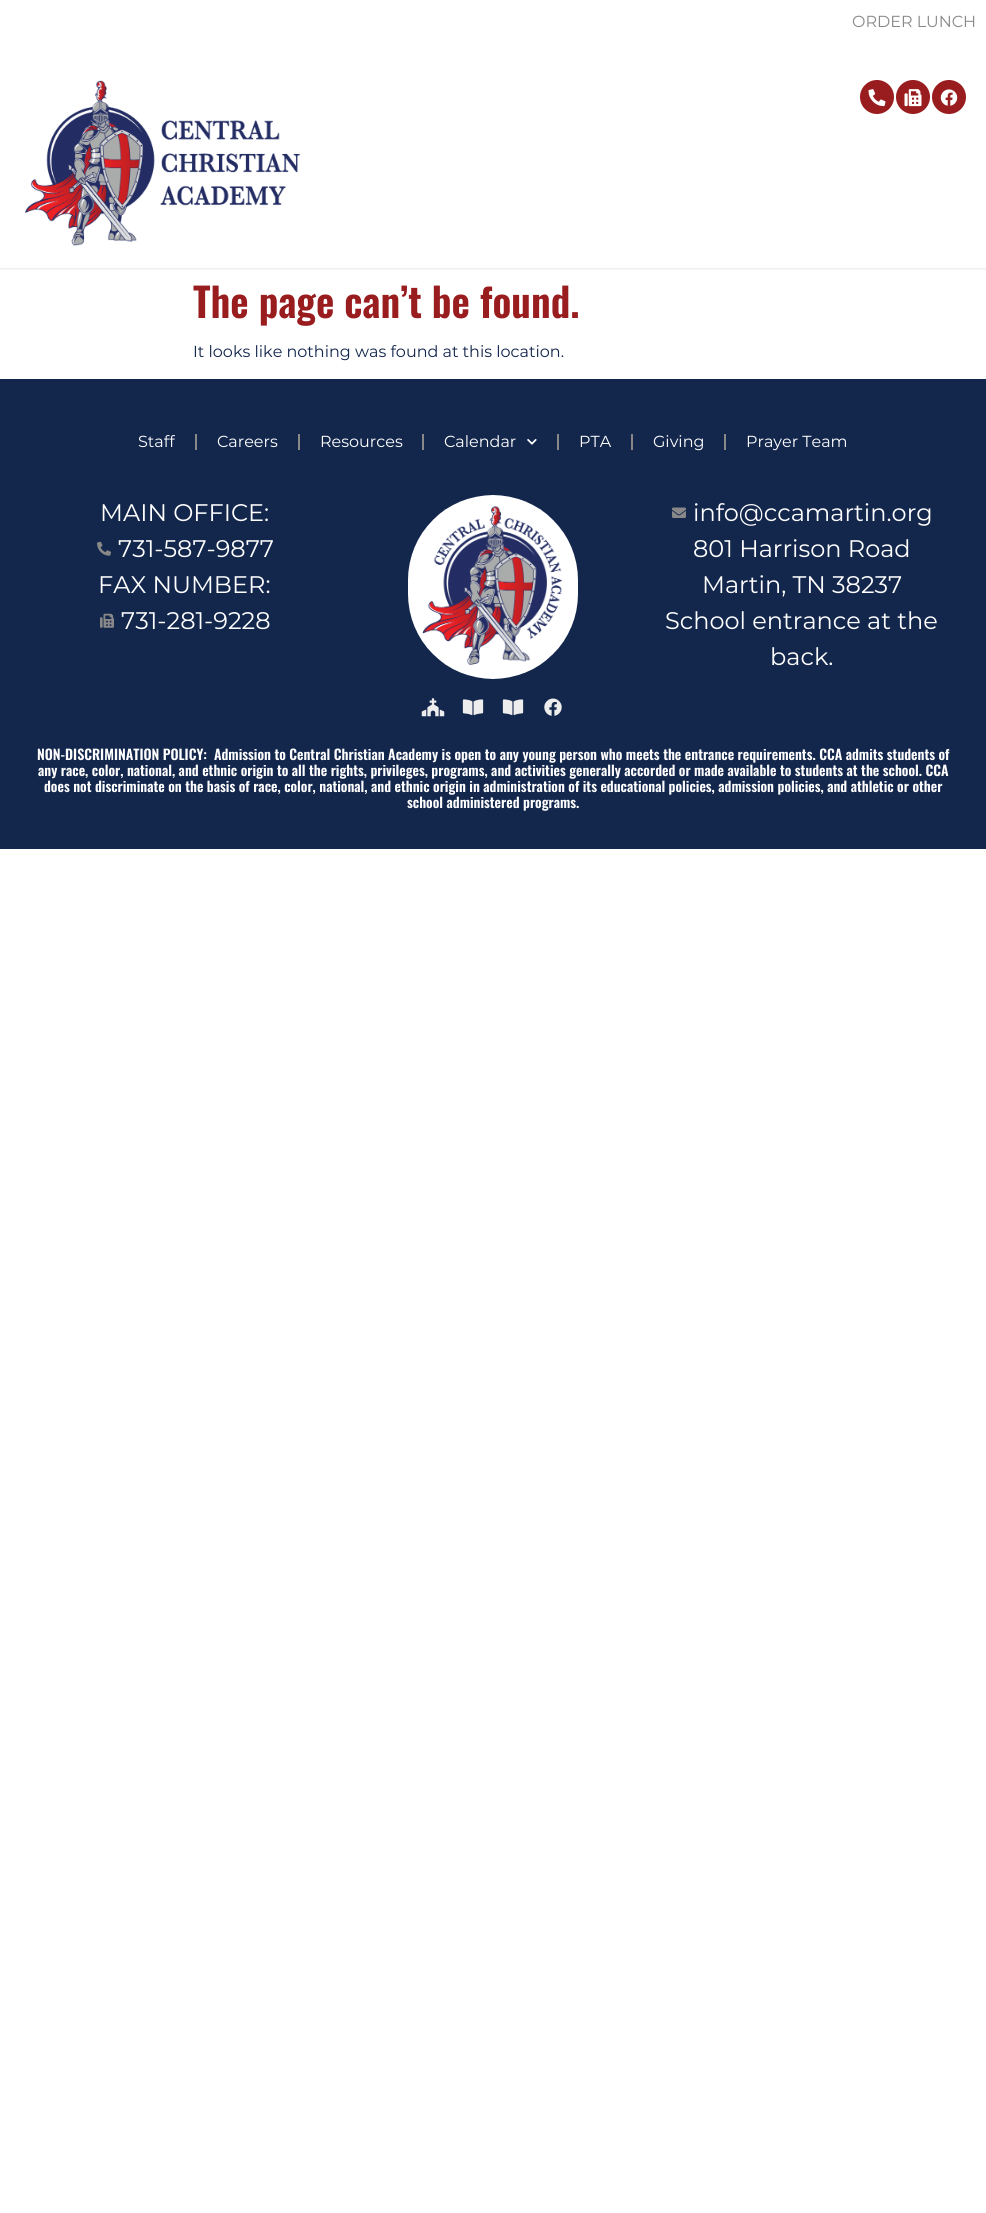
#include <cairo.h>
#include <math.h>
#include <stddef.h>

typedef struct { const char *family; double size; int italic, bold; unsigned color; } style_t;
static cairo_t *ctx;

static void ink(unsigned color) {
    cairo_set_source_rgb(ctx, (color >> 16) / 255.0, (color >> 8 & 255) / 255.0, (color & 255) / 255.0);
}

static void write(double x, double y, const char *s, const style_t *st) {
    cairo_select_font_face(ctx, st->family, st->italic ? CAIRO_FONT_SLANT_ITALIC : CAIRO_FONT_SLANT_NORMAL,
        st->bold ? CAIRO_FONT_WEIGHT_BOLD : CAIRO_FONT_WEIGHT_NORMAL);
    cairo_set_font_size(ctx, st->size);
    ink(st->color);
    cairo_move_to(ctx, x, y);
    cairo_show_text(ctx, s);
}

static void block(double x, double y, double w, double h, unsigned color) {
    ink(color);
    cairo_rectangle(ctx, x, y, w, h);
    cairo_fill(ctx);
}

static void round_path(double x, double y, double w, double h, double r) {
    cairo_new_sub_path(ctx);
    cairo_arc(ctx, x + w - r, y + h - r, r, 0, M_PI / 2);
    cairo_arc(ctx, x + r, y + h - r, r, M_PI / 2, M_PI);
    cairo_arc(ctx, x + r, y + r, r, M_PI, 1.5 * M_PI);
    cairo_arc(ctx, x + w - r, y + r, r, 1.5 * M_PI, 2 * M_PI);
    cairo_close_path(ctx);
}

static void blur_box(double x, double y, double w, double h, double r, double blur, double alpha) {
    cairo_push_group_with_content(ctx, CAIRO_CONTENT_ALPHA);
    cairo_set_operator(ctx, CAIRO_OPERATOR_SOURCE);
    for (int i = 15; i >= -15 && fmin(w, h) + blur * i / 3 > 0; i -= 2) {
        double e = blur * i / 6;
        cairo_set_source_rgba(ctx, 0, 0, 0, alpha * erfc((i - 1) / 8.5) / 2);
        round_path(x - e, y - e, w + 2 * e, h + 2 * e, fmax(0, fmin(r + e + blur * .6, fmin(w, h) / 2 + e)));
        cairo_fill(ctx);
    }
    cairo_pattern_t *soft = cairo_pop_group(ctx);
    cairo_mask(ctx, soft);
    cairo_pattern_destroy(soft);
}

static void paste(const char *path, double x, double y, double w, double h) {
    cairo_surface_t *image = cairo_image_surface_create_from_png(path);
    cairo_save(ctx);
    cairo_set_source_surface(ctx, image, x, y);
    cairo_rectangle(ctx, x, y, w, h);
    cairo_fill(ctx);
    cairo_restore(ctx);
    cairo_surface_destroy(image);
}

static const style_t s1 = {"Montserrat", 16, 0, 0, 0x888888};
static const style_t s2 = {"Oswald SemiBold", 40, 0, 0, 0x991c1f};
static const style_t s3 = {"Montserrat", 16, 0, 0, 0x13264c};
static const style_t s4 = {"Montserrat", 16, 0, 0, 0xffffff};
static const style_t s5 = {"Montserrat", 24, 0, 0, 0xffffff};
static const style_t s6 = {"Oswald SemiBold", 14, 0, 0, 0xffffff};

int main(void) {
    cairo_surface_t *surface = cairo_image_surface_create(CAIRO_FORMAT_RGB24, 986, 2213);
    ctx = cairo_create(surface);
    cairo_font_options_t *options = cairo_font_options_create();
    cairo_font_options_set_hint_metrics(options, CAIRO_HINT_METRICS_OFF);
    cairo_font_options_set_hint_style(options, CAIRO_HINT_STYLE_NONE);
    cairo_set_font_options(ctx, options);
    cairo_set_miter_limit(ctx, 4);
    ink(0xffffff);
    cairo_paint(ctx);
    write(852, 27, "ORDER LUNCH", &s1);
    cairo_save(ctx);
    cairo_rectangle(ctx, 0, 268, 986, 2);
    cairo_clip(ctx);
    ink(0x000000);
    blur_box(0, 59, 986, 210, 0, 1.5, 0.1);
    cairo_restore(ctx);
    paste("pic1.png", 25, 80, 275, 166);
    ink(0x991c1f);
    cairo_arc(ctx, 877, 97, 17, 0, 2 * M_PI);
    cairo_fill(ctx);
    paste("pic2.png", 868, 89, 18, 18);
    cairo_arc(ctx, 913, 97, 17, 0, 2 * M_PI);
    cairo_fill(ctx);
    paste("pic3.png", 904, 89, 18, 18);
    cairo_arc(ctx, 949, 97, 17, 0, 2 * M_PI);
    cairo_fill(ctx);
    paste("pic4.png", 940, 89, 18, 17);
    write(193, 318, "The page can’t be found.", &s2);
    write(193, 357, "It looks like nothing was found at this location.", &s3);
    block(0, 379, 986, 470, 0x13264c);
    write(138, 447, "Staff", &s4);
    block(195, 434, 2, 16, 0x888888);
    write(217, 447, "Careers", &s4);
    block(298, 434, 2, 16, 0x888888);
    write(320, 447, "Resources", &s4);
    block(422, 434, 2, 16, 0x888888);
    write(444, 447, "Calendar", &s4);
    paste("pic5.png", 527, 439, 10, 6);
    block(557, 434, 2, 16, 0x888888);
    write(579, 447, "PTA", &s4);
    block(631, 434, 2, 16, 0x888888);
    write(653, 447, "Giving", &s4);
    block(724, 434, 2, 16, 0x888888);
    write(746, 447, "Prayer Team", &s4);
    write(100, 521, "MAIN OFFICE:", &s5);
    paste("pic6.png", 97, 541, 14, 15);
    write(118, 557, "731-587-9877", &s5);
    write(98, 593, "FAX NUMBER:", &s5);
    paste("pic7.png", 100, 613, 14, 15);
    write(121, 629, "731-281-9228", &s5);
    paste("pic8.png", 408, 495, 170, 184);
    paste("pic9.png", 672, 507, 14, 11);
    write(693, 521, "info@ccamartin.org", &s5);
    write(693, 557, "801 Harrison Road", &s5);
    write(702, 593, "Martin, TN 38237", &s5);
    write(665, 629, "School entrance at the", &s5);
    write(770, 665, "back.", &s5);
    paste("pic10.png", 421, 698, 24, 19);
    paste("pic11.png", 462, 699, 22, 17);
    paste("pic11.png", 502, 699, 22, 17);
    paste("pic12.png", 544, 698, 18, 18);
    write(37, 760, "NON-DISCRIMINATION POLICY:  Admission to Central Christian Academy is open to any young person who meets the entrance requirements. CCA admits students of", &s6);
    write(38, 776, "any race, color, national, and ethnic origin to all the rights, privileges, programs, and activities generally accorded or made available to students at the school. CCA", &s6);
    write(44, 792, "does not discriminate on the basis of race, color, national, and ethnic origin in administration of its educational policies, admission policies, and athletic or other", &s6);
    write(407, 808, "school administered programs.", &s6);
    cairo_surface_write_to_png(surface, "screenshot.png");
    cairo_font_options_destroy(options);
    cairo_destroy(ctx);
    cairo_surface_destroy(surface);
    return 0;
}
